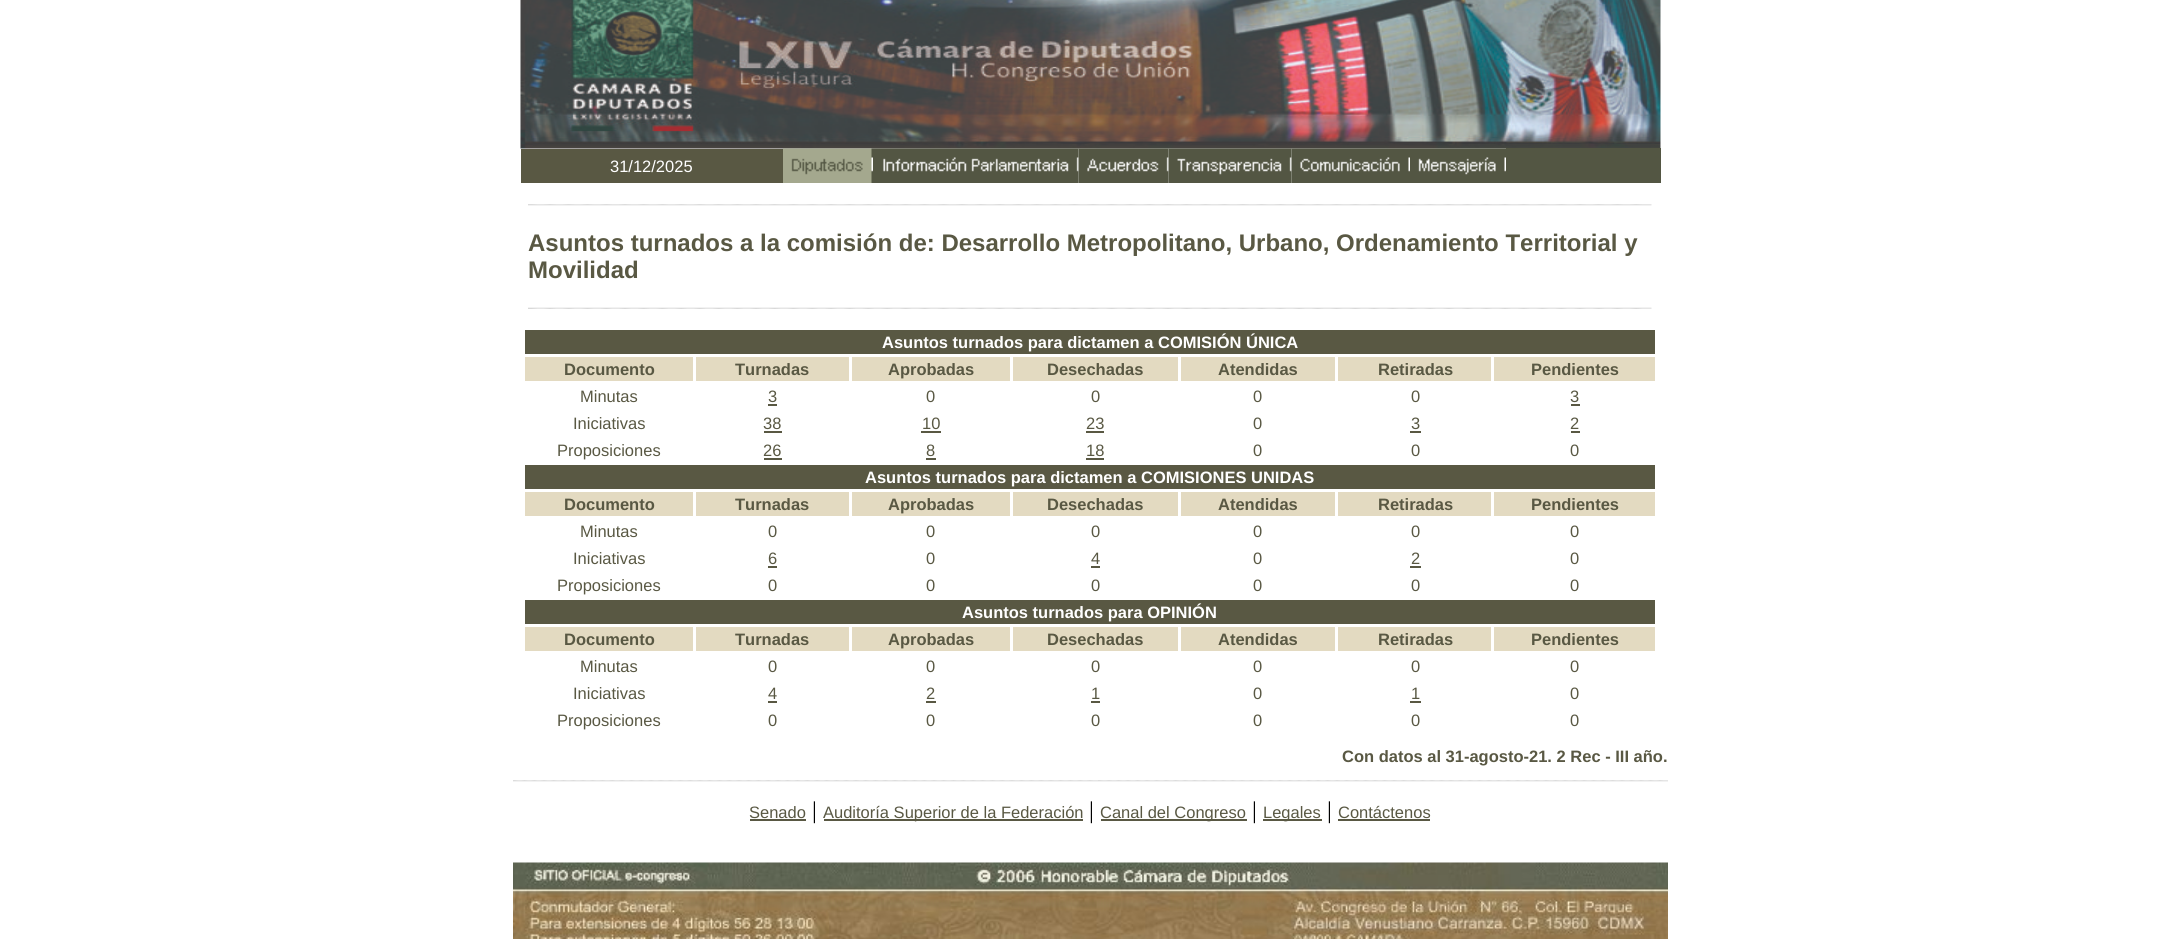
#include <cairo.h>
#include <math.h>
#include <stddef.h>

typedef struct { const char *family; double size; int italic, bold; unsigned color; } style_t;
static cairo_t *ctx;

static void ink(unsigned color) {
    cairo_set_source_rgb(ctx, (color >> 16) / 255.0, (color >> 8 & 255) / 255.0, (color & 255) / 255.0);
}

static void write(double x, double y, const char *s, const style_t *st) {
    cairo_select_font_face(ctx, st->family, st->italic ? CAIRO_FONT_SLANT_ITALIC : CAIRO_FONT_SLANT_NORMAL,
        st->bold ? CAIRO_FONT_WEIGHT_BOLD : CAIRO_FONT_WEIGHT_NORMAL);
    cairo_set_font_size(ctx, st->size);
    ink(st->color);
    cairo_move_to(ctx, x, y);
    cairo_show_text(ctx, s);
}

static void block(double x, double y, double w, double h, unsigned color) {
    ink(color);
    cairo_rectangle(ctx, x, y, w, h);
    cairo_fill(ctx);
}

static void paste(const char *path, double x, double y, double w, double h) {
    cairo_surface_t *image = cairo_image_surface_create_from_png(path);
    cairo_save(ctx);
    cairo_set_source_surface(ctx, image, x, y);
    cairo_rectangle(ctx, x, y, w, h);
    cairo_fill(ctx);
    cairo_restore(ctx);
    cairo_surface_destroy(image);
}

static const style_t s1 = {"Liberation Sans", 16.5, 0, 0, 0xffffff};
static const style_t s2 = {"Liberation Sans", 24, 0, 1, 0x595843};
static const style_t s3 = {"Liberation Sans", 16.5, 0, 1, 0xffffff};
static const style_t s4 = {"Liberation Sans", 16.5, 0, 1, 0x595843};
static const style_t s5 = {"Liberation Sans", 16.5, 0, 0, 0x595843};
static const style_t s6 = {"Liberation Serif", 24, 0, 0, 0x000000};

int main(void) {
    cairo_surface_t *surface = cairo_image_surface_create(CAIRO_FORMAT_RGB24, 2179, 939);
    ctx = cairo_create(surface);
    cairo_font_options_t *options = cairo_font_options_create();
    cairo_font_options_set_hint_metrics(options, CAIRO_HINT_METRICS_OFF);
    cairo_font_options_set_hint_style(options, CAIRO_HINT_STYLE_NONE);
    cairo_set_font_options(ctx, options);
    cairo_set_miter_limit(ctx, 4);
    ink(0xffffff);
    cairo_paint(ctx);
    paste("pic1.png", 520, 0, 1141, 149);
    block(521, 149, 262, 34, 0x595843);
    write(610, 172, "31/12/2025", &s1);
    paste("pic2.png", 783, 148, 90, 35);
    paste("pic3.png", 873, 148, 206, 35);
    paste("pic4.png", 1078, 148, 91, 35);
    paste("pic5.png", 1168, 148, 124, 35);
    paste("pic6.png", 1291, 148, 119, 35);
    paste("pic7.png", 1410, 148, 96, 35);
    block(1506, 148, 155, 35, 0x535643);
    paste("pic8.png", 528, 204, 1124, 2);
    write(528, 251, "Asuntos turnados a la comisión de: Desarrollo Metropolitano, Urbano, Ordenamiento Territorial y", &s2);
    write(528, 278, "Movilidad", &s2);
    paste("pic9.png", 528, 307, 1124, 2);
    block(525, 330, 1130, 24, 0x595843);
    write(882, 348, "Asuntos turnados para dictamen a COMISIÓN ÚNICA", &s3);
    block(525, 357, 168, 24, 0xe3dac1);
    write(564, 375, "Documento", &s4);
    block(696, 357, 153, 24, 0xe3dac1);
    write(735, 375, "Turnadas", &s4);
    block(852, 357, 158, 24, 0xe3dac1);
    write(888, 375, "Aprobadas", &s4);
    block(1013, 357, 165, 24, 0xe3dac1);
    write(1047, 375, "Desechadas", &s4);
    block(1181, 357, 154, 24, 0xe3dac1);
    write(1218, 375, "Atendidas", &s4);
    block(1338, 357, 153, 24, 0xe3dac1);
    write(1378, 375, "Retiradas", &s4);
    block(1494, 357, 161, 24, 0xe3dac1);
    write(1531, 375, "Pendientes", &s4);
    write(580, 402, "Minutas", &s5);
    write(768, 402, "3", &s5);
    block(768, 404, 9, 2, 0x595843);
    write(926, 402, "0", &s5);
    write(1091, 402, "0", &s5);
    write(1253, 402, "0", &s5);
    write(1411, 402, "0", &s5);
    write(1570, 402, "3", &s5);
    block(1571, 404, 9, 2, 0x595843);
    write(573, 429, "Iniciativas", &s5);
    write(763, 429, "38", &s5);
    block(764, 431, 18, 2, 0x595843);
    write(922, 429, "10", &s5);
    block(921, 431, 20, 2, 0x595843);
    write(1086, 429, "23", &s5);
    block(1086, 431, 18, 2, 0x595843);
    write(1253, 429, "0", &s5);
    write(1411, 429, "3", &s5);
    block(1410, 431, 11, 2, 0x595843);
    write(1570, 429, "2", &s5);
    block(1571, 431, 9, 2, 0x595843);
    write(557, 456, "Proposiciones", &s5);
    write(763, 456, "26", &s5);
    block(764, 458, 18, 2, 0x595843);
    write(926, 456, "8", &s5);
    block(926, 458, 10, 2, 0x595843);
    write(1086, 456, "18", &s5);
    block(1086, 458, 18, 2, 0x595843);
    write(1253, 456, "0", &s5);
    write(1411, 456, "0", &s5);
    write(1570, 456, "0", &s5);
    block(525, 465, 1130, 24, 0x595843);
    write(865, 483, "Asuntos turnados para dictamen a COMISIONES UNIDAS", &s3);
    block(525, 492, 168, 24, 0xe3dac1);
    write(564, 510, "Documento", &s4);
    block(696, 492, 153, 24, 0xe3dac1);
    write(735, 510, "Turnadas", &s4);
    block(852, 492, 158, 24, 0xe3dac1);
    write(888, 510, "Aprobadas", &s4);
    block(1013, 492, 165, 24, 0xe3dac1);
    write(1047, 510, "Desechadas", &s4);
    block(1181, 492, 154, 24, 0xe3dac1);
    write(1218, 510, "Atendidas", &s4);
    block(1338, 492, 153, 24, 0xe3dac1);
    write(1378, 510, "Retiradas", &s4);
    block(1494, 492, 161, 24, 0xe3dac1);
    write(1531, 510, "Pendientes", &s4);
    write(580, 537, "Minutas", &s5);
    write(768, 537, "0", &s5);
    write(926, 537, "0", &s5);
    write(1091, 537, "0", &s5);
    write(1253, 537, "0", &s5);
    write(1411, 537, "0", &s5);
    write(1570, 537, "0", &s5);
    write(573, 564, "Iniciativas", &s5);
    write(768, 564, "6", &s5);
    block(768, 566, 9, 2, 0x595843);
    write(926, 564, "0", &s5);
    write(1091, 564, "4", &s5);
    block(1091, 566, 9, 2, 0x595843);
    write(1253, 564, "0", &s5);
    write(1411, 564, "2", &s5);
    block(1410, 566, 11, 2, 0x595843);
    write(1570, 564, "0", &s5);
    write(557, 591, "Proposiciones", &s5);
    write(768, 591, "0", &s5);
    write(926, 591, "0", &s5);
    write(1091, 591, "0", &s5);
    write(1253, 591, "0", &s5);
    write(1411, 591, "0", &s5);
    write(1570, 591, "0", &s5);
    block(525, 600, 1130, 24, 0x595843);
    write(962, 618, "Asuntos turnados para OPINIÓN", &s3);
    block(525, 627, 168, 24, 0xe3dac1);
    write(564, 645, "Documento", &s4);
    block(696, 627, 153, 24, 0xe3dac1);
    write(735, 645, "Turnadas", &s4);
    block(852, 627, 158, 24, 0xe3dac1);
    write(888, 645, "Aprobadas", &s4);
    block(1013, 627, 165, 24, 0xe3dac1);
    write(1047, 645, "Desechadas", &s4);
    block(1181, 627, 154, 24, 0xe3dac1);
    write(1218, 645, "Atendidas", &s4);
    block(1338, 627, 153, 24, 0xe3dac1);
    write(1378, 645, "Retiradas", &s4);
    block(1494, 627, 161, 24, 0xe3dac1);
    write(1531, 645, "Pendientes", &s4);
    write(580, 672, "Minutas", &s5);
    write(768, 672, "0", &s5);
    write(926, 672, "0", &s5);
    write(1091, 672, "0", &s5);
    write(1253, 672, "0", &s5);
    write(1411, 672, "0", &s5);
    write(1570, 672, "0", &s5);
    write(573, 699, "Iniciativas", &s5);
    write(768, 699, "4", &s5);
    block(768, 701, 9, 2, 0x595843);
    write(926, 699, "2", &s5);
    block(926, 701, 10, 2, 0x595843);
    write(1091, 699, "1", &s5);
    block(1091, 701, 9, 2, 0x595843);
    write(1253, 699, "0", &s5);
    write(1411, 699, "1", &s5);
    block(1410, 701, 11, 2, 0x595843);
    write(1570, 699, "0", &s5);
    write(557, 726, "Proposiciones", &s5);
    write(768, 726, "0", &s5);
    write(926, 726, "0", &s5);
    write(1091, 726, "0", &s5);
    write(1253, 726, "0", &s5);
    write(1411, 726, "0", &s5);
    write(1570, 726, "0", &s5);
    write(1342, 762, "Con datos al 31-agosto-21. 2 Rec - III año.", &s4);
    paste("pic10.png", 513, 780, 585, 2);
    paste("pic11.png", 1098, 780, 570, 2);
    write(749, 818, "Senado", &s5);
    block(750, 819, 56, 2, 0x595843);
    write(812, 818, "|", &s6);
    block(824, 819, 259, 2, 0x595843);
    write(823, 818, "Auditoría Superior de la Federación", &s5);
    write(1089, 818, "|", &s6);
    block(1101, 819, 146, 2, 0x595843);
    write(1100, 818, "Canal del Congreso", &s5);
    write(1252, 818, "|", &s6);
    block(1263, 819, 59, 2, 0x595843);
    write(1263, 818, "Legales", &s5);
    write(1327, 818, "|", &s6);
    write(1338, 818, "Contáctenos", &s5);
    block(1338, 819, 92, 2, 0x595843);
    paste("pic12.png", 513, 862, 1155, 77);
    cairo_surface_write_to_png(surface, "screenshot.png");
    cairo_font_options_destroy(options);
    cairo_destroy(ctx);
    cairo_surface_destroy(surface);
    return 0;
}
